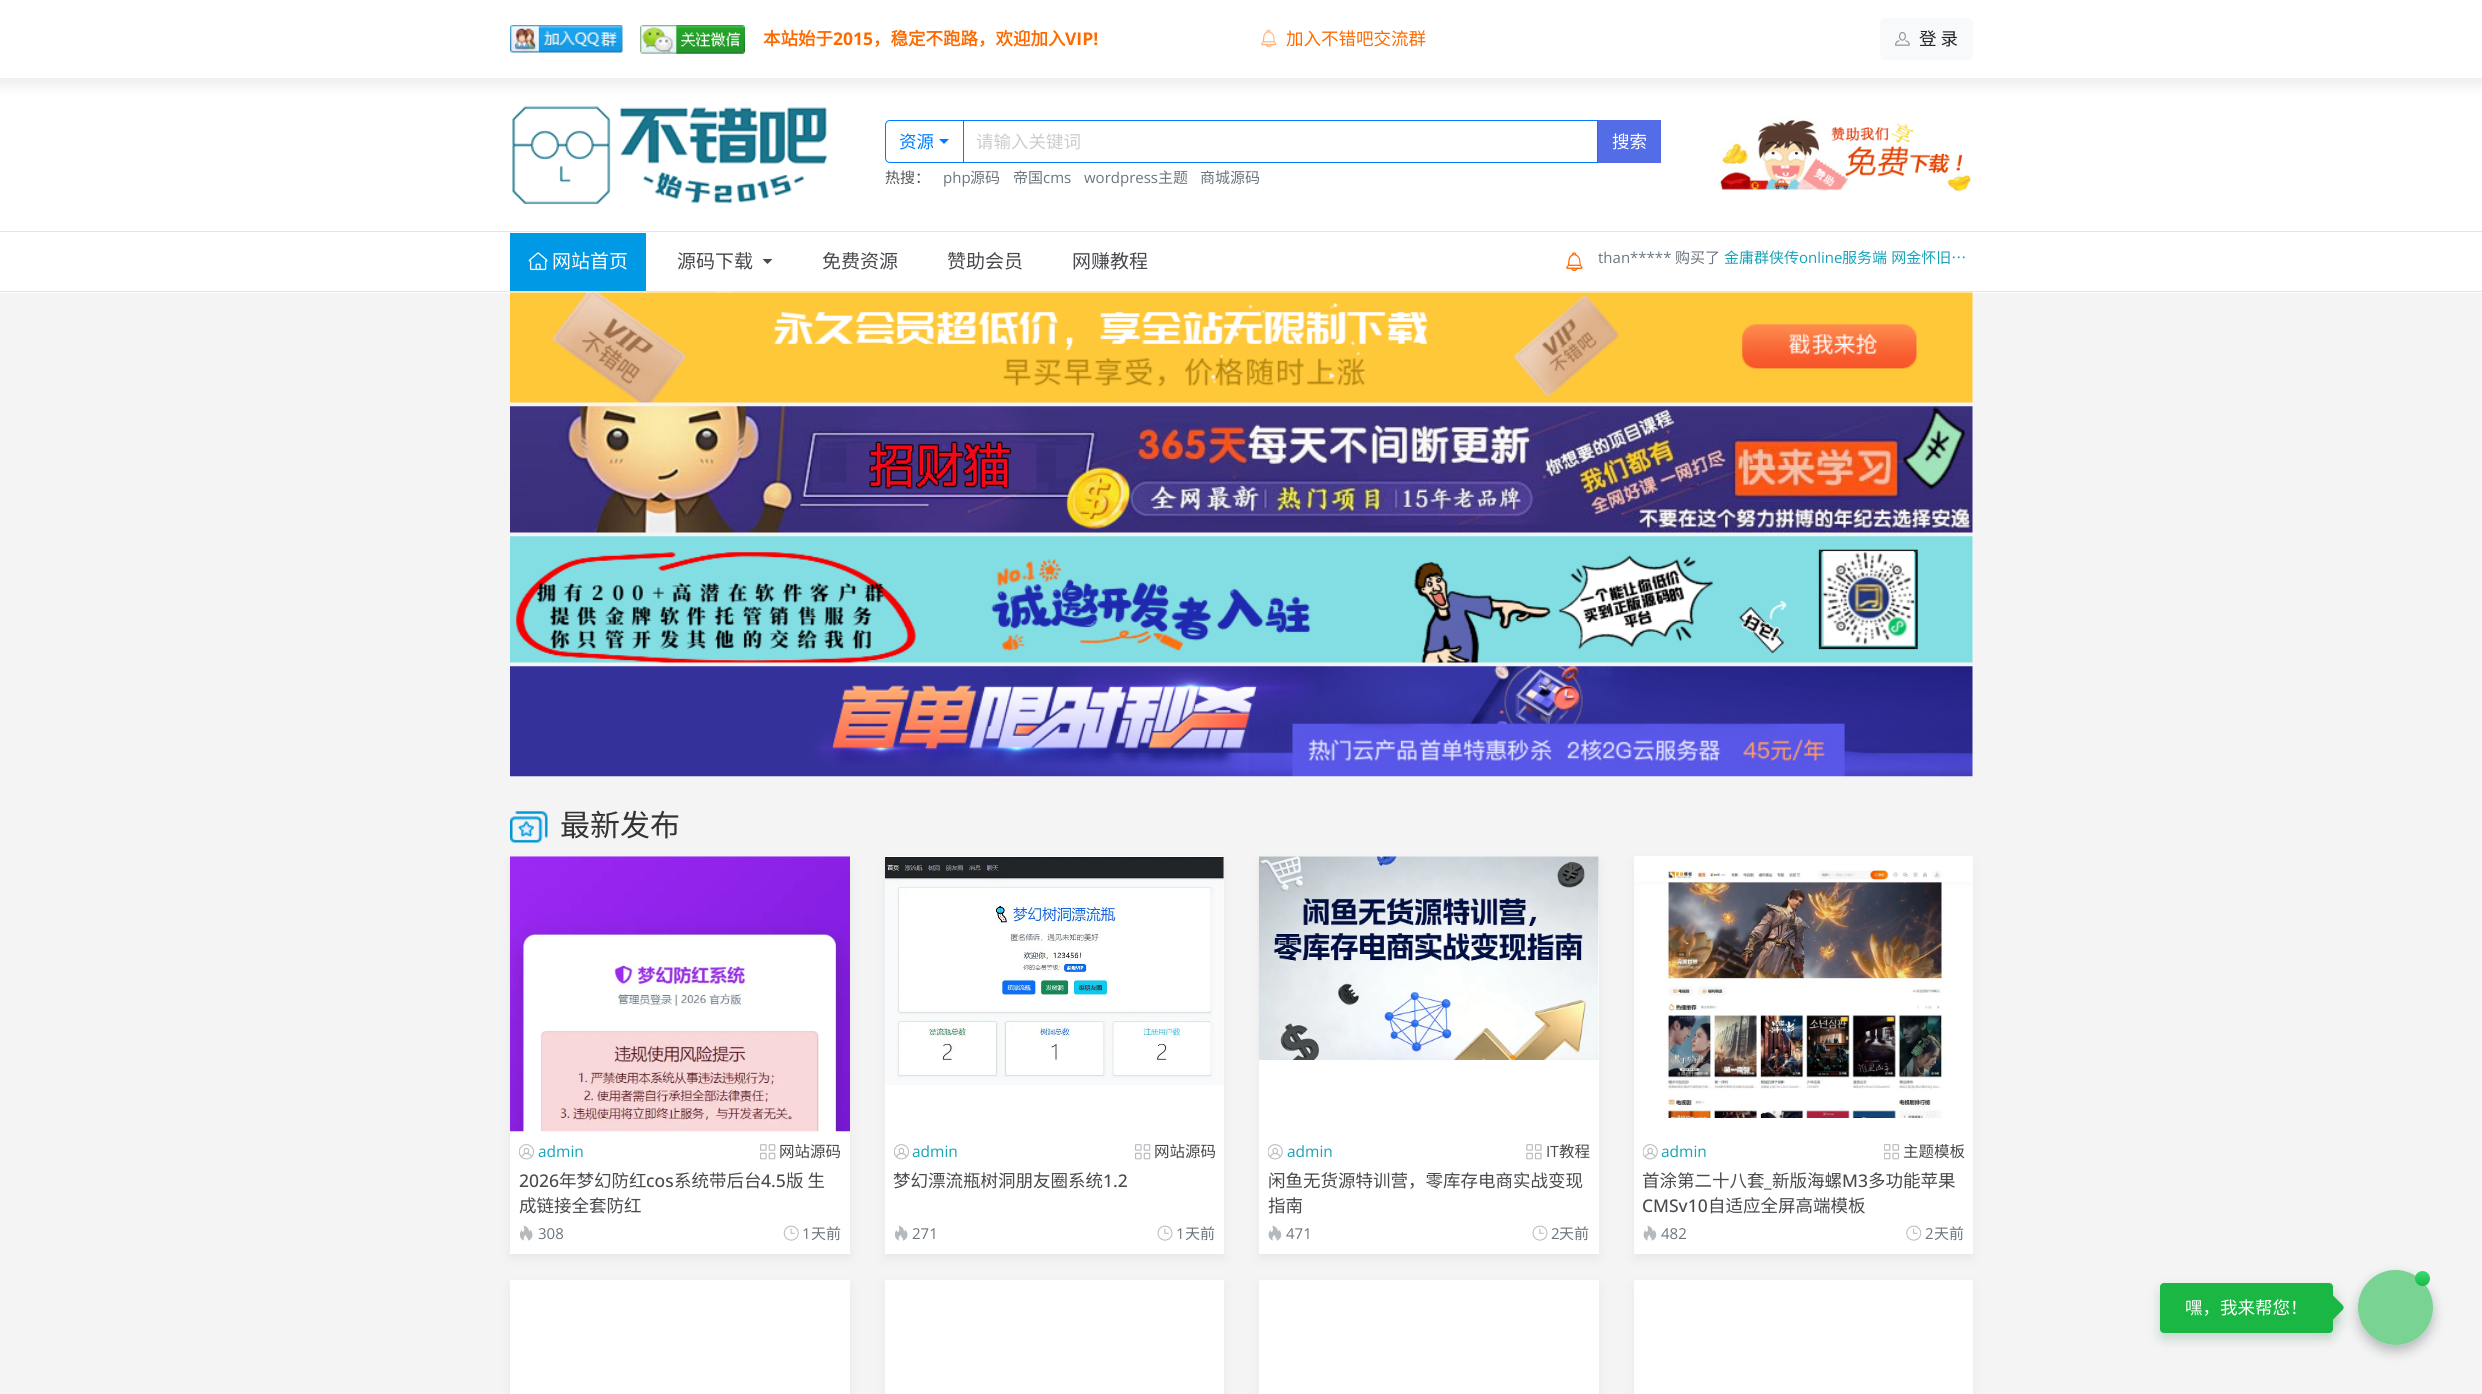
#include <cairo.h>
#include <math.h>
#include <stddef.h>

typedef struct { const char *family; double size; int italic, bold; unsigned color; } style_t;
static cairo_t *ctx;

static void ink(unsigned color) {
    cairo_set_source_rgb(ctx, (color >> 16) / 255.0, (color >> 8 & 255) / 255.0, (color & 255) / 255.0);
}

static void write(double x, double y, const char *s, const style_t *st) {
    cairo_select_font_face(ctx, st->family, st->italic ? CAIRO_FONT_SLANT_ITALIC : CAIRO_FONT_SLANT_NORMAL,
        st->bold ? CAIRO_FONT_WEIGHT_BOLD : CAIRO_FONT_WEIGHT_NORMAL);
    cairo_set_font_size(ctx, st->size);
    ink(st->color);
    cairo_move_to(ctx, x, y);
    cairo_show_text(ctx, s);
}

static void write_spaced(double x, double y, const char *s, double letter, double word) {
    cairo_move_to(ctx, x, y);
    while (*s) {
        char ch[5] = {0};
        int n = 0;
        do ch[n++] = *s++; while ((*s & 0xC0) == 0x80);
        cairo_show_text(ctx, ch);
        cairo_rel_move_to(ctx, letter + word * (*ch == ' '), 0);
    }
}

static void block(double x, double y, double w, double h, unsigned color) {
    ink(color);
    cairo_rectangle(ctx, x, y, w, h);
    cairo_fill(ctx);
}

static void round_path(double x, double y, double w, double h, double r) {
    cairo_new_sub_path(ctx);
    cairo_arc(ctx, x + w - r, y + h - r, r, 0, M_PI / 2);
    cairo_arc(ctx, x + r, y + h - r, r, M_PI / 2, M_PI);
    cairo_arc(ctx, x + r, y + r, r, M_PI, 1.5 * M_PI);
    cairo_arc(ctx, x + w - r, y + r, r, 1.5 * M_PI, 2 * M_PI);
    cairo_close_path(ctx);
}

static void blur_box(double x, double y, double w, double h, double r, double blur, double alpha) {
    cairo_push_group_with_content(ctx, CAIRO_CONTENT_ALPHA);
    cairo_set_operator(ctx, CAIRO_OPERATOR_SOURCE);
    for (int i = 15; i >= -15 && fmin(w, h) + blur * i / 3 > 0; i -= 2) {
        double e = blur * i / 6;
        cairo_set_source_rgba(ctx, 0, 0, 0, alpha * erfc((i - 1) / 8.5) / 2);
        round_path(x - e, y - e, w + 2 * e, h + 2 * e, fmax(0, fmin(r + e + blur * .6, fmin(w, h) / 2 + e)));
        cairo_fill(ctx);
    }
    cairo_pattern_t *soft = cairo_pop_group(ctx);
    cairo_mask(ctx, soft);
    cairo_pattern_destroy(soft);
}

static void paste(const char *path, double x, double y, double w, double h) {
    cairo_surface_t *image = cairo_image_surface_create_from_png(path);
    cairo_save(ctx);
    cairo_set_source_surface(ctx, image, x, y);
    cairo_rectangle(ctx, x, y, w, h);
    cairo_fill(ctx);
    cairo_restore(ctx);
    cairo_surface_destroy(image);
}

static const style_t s1 = {"Noto Sans CJK SC", 17.5, 0, 1, 0xfe6a00};
static const style_t s2 = {"Open Sans", 17.5, 0, 1, 0xfe6a00};
static const style_t s3 = {"Noto Sans CJK SC", 17.5, 0, 0, 0xfe6a00};
static const style_t s4 = {"Noto Sans CJK SC", 17.5, 0, 0, 0x212529};
static const style_t s5 = {"Noto Sans CJK SC", 17.5, 0, 0, 0x007bff};
static const style_t s6 = {"Noto Sans CJK SC", 17.5, 0, 0, 0xcccccc};
static const style_t s7 = {"Noto Sans CJK SC", 17.5, 0, 0, 0xffffff};
static const style_t s8 = {"Noto Sans CJK SC", 15, 0, 0, 0x555555};
static const style_t s9 = {"Open Sans", 15, 0, 0, 0x6c757d};
static const style_t s10 = {"Noto Sans CJK SC", 15, 0, 0, 0x6c757d};
static const style_t s11 = {"Noto Sans CJK SC", 19, 0, 0, 0xffffff};
static const style_t s12 = {"Noto Sans CJK SC", 19, 0, 0, 0x48494d};
static const style_t s13 = {"Noto Sans CJK SC", 15, 0, 0, 0x17a2b8};
static const style_t s14 = {"Open Sans", 15, 0, 0, 0x17a2b8};
static const style_t s15 = {"Noto Sans CJK SC", 30, 0, 0, 0x333333};
static const style_t s16 = {"Open Sans", 15.5, 0, 0, 0x17a2b8};
static const style_t s17 = {"Noto Sans CJK SC", 15.5, 0, 0, 0x48494d};
static const style_t s18 = {"Open Sans Medium", 17.5, 0, 0, 0x48494d};
static const style_t s19 = {"Noto Sans CJK SC", 17.5, 0, 0, 0x48494d};
static const style_t s20 = {"Open Sans", 15.5, 0, 0, 0x48494d};

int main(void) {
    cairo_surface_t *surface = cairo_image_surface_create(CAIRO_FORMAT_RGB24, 2482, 1394);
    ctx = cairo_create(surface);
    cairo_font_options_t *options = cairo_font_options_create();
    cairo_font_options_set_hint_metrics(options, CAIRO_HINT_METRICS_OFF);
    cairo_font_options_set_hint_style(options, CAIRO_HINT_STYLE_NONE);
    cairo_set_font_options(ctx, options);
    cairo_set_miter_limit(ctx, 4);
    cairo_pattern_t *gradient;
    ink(0xf4f4f4);
    cairo_paint(ctx);
    block(0, 79, 2482, 214, 0xffffff);
    ink(0xeeeeee);
    blur_box(-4, 0, 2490, 86, 0, 6, 1);
    block(0, 0, 2482, 78, 0xffffff);
    paste("pic1.png", 510, 25, 113, 28);
    paste("pic2.png", 640, 25, 105, 29);
    write(763, 45, "本站始于", &s1);
    write(833, 45, "2015", &s2);
    write(873, 45, "，稳定不跑路，欢迎加入", &s1);
    write(1065, 45, "VIP!", &s2);
    paste("pic3.png", 1261, 29, 16, 19);
    write(1286, 45, "加入不错吧交流群", &s3);
    ink(0xf8f9fa);
    round_path(1880, 18, 93, 42, 5);
    cairo_fill(ctx);
    paste("pic4.png", 1895, 32, 15, 14);
    write(1919, 45, "登 录", &s4);
    paste("pic5.png", 512, 106, 316, 99);
    cairo_rectangle(ctx, 963.5, 120.5, 634, 42);
    ink(0x007bff);
    cairo_set_line_width(ctx, 1);
    cairo_stroke(ctx);
    cairo_new_path(ctx);
    cairo_move_to(ctx, 890, 120.5);
    cairo_line_to(ctx, 963.5, 120.5);
    cairo_line_to(ctx, 963.5, 162.5);
    cairo_line_to(ctx, 890, 162.5);
    cairo_curve_to(ctx, 887.5, 162.5, 885.5, 160.5, 885.5, 158);
    cairo_line_to(ctx, 885.5, 125);
    cairo_curve_to(ctx, 885.5, 122.5, 887.5, 120.5, 890, 120.5);
    cairo_close_path(ctx);
    cairo_stroke(ctx);
    write(899, 148, "资源", &s5);
    cairo_new_path(ctx);
    cairo_move_to(ctx, 939, 139);
    cairo_line_to(ctx, 949, 139);
    cairo_line_to(ctx, 944, 144);
    cairo_close_path(ctx);
    cairo_fill(ctx);
    write(976, 148, "请输入关键词", &s6);
    block(1598, 120, 63, 43, 0x536de6);
    write(1612, 148, "搜索", &s7);
    write(885, 183, "热搜：", &s8);
    write(943, 183, "php", &s9);
    write(970, 183, "源码", &s10);
    write(1013, 183, "帝国", &s10);
    write(1043, 183, "cms", &s9);
    write(1084, 183, "wordpress", &s9);
    write(1158, 183, "主题", &s10);
    write(1200, 183, "商城源码", &s10);
    paste("pic6.png", 1720, 117, 252, 75);
    block(0, 231, 2482, 1, 0xe4e4e6);
    block(0, 291, 2482, 1, 0xe4e4e6);
    block(510, 233, 136, 58, 0x0099e5);
    paste("pic7.png", 528, 252, 20, 19);
    write(552, 268, "网站首页", &s11);
    write(677, 268, "源码下载", &s12);
    cairo_new_path(ctx);
    cairo_move_to(ctx, 762.5, 259);
    cairo_line_to(ctx, 772.5, 259);
    cairo_line_to(ctx, 767.5, 264);
    cairo_close_path(ctx);
    cairo_fill(ctx);
    paste("pic8.png", 716, 291, 16, 1);
    write(822, 268, "免费资源", &s12);
    write(947, 268, "赞助会员", &s12);
    write(1072, 268, "网赚教程", &s12);
    paste("pic9.png", 1566, 252, 17, 20);
    write(1598, 263, "than*****", &s9);
    write(1675, 263, "购买了", &s10);
    write(1724, 263, "金庸群侠传", &s13);
    write(1799, 263, "online", &s14);
    cairo_select_font_face(ctx, "Noto Sans CJK SC", CAIRO_FONT_SLANT_NORMAL, CAIRO_FONT_WEIGHT_NORMAL);
    write_spaced(1842, 263, "服务端 网金怀旧…", 0, 1);
    paste("pic10.png", 510, 292, 1463, 111);
    paste("pic11.png", 510, 406, 1463, 127);
    paste("pic12.png", 510, 536, 1463, 127);
    paste("pic13.png", 510, 666, 1463, 111);
    paste("pic14.png", 510, 811, 38, 32);
    write(560, 836, "最新发布", &s15);
    ink(0x000000);
    blur_box(511, 863, 338, 395, 0, 6.5, 0.06);
    block(510, 856, 340, 398, 0xffffff);
    paste("pic15.png", 510, 856, 340, 276);
    paste("pic16.png", 519, 1144, 15, 16);
    write(538, 1157, "admin", &s16);
    paste("pic17.png", 760, 1144, 16, 16);
    write(779, 1157, "网站源码", &s17);
    write(519, 1187, "2026", &s18);
    write(559, 1187, "年梦幻防红", &s19);
    write(646, 1187, "cos", &s18);
    write(674, 1187, "系统带后台", &s19);
    write(761, 1187, "4.5", &s18);
    write(786, 1187, "版 生", &s19);
    write(519, 1212, "成链接全套防红", &s19);
    paste("pic18.png", 519, 1225, 14, 16);
    write(538, 1239, "308", &s9);
    paste("pic19.png", 783, 1225, 16, 16);
    write(802, 1239, "1", &s9);
    write(811, 1239, "天前", &s10);
    ink(0x000000);
    blur_box(886, 863, 337, 395, 0, 6.5, 0.06);
    block(885, 856, 339, 398, 0xffffff);
    paste("pic20.png", 885, 857, 339, 228);
    paste("pic16.png", 894, 1144, 15, 16);
    write(912, 1157, "admin", &s16);
    paste("pic17.png", 1135, 1144, 16, 16);
    write(1154, 1157, "网站源码", &s17);
    write(893, 1187, "梦幻漂流瓶树洞朋友圈系统", &s19);
    write(1103, 1187, "1.2", &s18);
    paste("pic18.png", 894, 1225, 14, 16);
    write(912, 1239, "271", &s9);
    paste("pic21.png", 1157, 1225, 16, 16);
    write(1176, 1239, "1", &s9);
    write(1185, 1239, "天前", &s10);
    ink(0x000000);
    blur_box(1260, 863, 338, 395, 0, 6.5, 0.06);
    block(1259, 856, 340, 398, 0xffffff);
    paste("pic22.png", 1258, 856, 341, 204);
    paste("pic23.png", 1268, 1144, 15, 16);
    write(1287, 1157, "admin", &s16);
    paste("pic24.png", 1526, 1144, 16, 16);
    write(1546, 1157, "IT", &s20);
    write(1559, 1157, "教程", &s17);
    write(1268, 1187, "闲鱼无货源特训营，零库存电商实战变现", &s19);
    write(1268, 1212, "指南", &s19);
    paste("pic25.png", 1268, 1225, 14, 16);
    write(1286, 1239, "471", &s9);
    paste("pic21.png", 1532, 1225, 16, 16);
    write(1551, 1239, "2", &s9);
    write(1559, 1239, "天前", &s10);
    ink(0x000000);
    blur_box(1635, 863, 336, 395, 0, 6.5, 0.06);
    block(1634, 856, 339, 398, 0xffffff);
    paste("pic26.png", 1634, 870, 338, 248);
    paste("pic23.png", 1643, 1144, 15, 16);
    write(1661, 1157, "admin", &s16);
    paste("pic27.png", 1884, 1144, 16, 16);
    write(1903, 1157, "主题模板", &s17);
    write(1642, 1187, "首涂第二十八套", &s19);
    write(1772, 1187, "新版海螺", &s19);
    write(1842, 1187, "M3", &s18);
    write(1868, 1187, "多功能苹果", &s19);
    write(1764, 1187, "_", &s18);
    write(1642, 1212, "CMSv10", &s18);
    write(1708, 1212, "自适应全屏高端模板", &s19);
    paste("pic25.png", 1643, 1225, 14, 16);
    write(1661, 1239, "482", &s9);
    paste("pic28.png", 1906, 1225, 16, 16);
    write(1925, 1239, "2", &s9);
    write(1934, 1239, "天前", &s10);
    ink(0x000000);
    blur_box(511, 1286, 338, 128, 0, 6.5, 0.06);
    block(510, 1280, 340, 114, 0xffffff);
    ink(0x000000);
    blur_box(886, 1286, 337, 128, 0, 6.5, 0.06);
    block(885, 1280, 339, 114, 0xffffff);
    ink(0x000000);
    blur_box(1260, 1286, 338, 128, 0, 6.5, 0.06);
    block(1259, 1280, 340, 114, 0xffffff);
    ink(0x000000);
    blur_box(1635, 1286, 336, 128, 0, 6.5, 0.06);
    block(1634, 1280, 339, 114, 0xffffff);
    cairo_save(ctx);
    cairo_set_fill_rule(ctx, CAIRO_FILL_RULE_EVEN_ODD);
    cairo_new_path(ctx);
    cairo_move_to(ctx, 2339, 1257);
    cairo_line_to(ctx, 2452, 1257);
    cairo_line_to(ctx, 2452, 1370);
    cairo_line_to(ctx, 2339, 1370);
    cairo_close_path(ctx);
    cairo_move_to(ctx, 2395.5, 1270);
    cairo_curve_to(ctx, 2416, 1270, 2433, 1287, 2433, 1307.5);
    cairo_curve_to(ctx, 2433, 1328, 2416, 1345, 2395.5, 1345);
    cairo_curve_to(ctx, 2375, 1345, 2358, 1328, 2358, 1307.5);
    cairo_curve_to(ctx, 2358, 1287, 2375, 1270, 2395.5, 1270);
    cairo_close_path(ctx);
    cairo_clip(ctx);
    ink(0x233238);
    blur_box(2358, 1276, 75, 75, 37.5, 6, 0.3);
    cairo_restore(ctx);
    cairo_set_source_rgba(ctx, 1, 1, 1, 0.85);
    cairo_arc(ctx, 2395.5, 1307.5, 37.5, 0, 2 * M_PI);
    cairo_fill(ctx);
    ink(0x006023);
    blur_box(2315, 1301, 25, 25, 4, 6.5, 0.2);
    cairo_set_source_rgba(ctx, 0.102, 0.718, 0.267, 0.25);
    cairo_arc(ctx, 2395.5, 1307.5, 37.5, 0, 2 * M_PI);
    cairo_fill(ctx);
    cairo_arc(ctx, 2395.5, 1307.5, 37.5, 0, 2 * M_PI);
    cairo_fill(ctx);
    cairo_arc(ctx, 2395.5, 1307.5, 37.5, 0, 2 * M_PI);
    cairo_fill(ctx);
    gradient = cairo_pattern_create_linear(2423, 1271, 2423, 1286);
    cairo_pattern_add_color_stop_rgba(gradient, 0, 0.22, 0.863, 0.475, 1);
    cairo_pattern_add_color_stop_rgba(gradient, 1, 0.102, 0.718, 0.267, 1);
    cairo_set_source(ctx, gradient);
    cairo_pattern_destroy(gradient);
    cairo_arc(ctx, 2422.5, 1278.5, 7.5, 0, 2 * M_PI);
    cairo_fill(ctx);
    ink(0x006023);
    blur_box(2160, 1289, 173, 50, 4, 6, 0.2);
    ink(0x1ab744);
    cairo_new_path(ctx);
    cairo_move_to(ctx, 2312.5, 1305);
    cairo_line_to(ctx, 2325, 1292.5);
    cairo_curve_to(ctx, 2326.5, 1291, 2328.5, 1291, 2330, 1292.5);
    cairo_line_to(ctx, 2342.5, 1305);
    cairo_curve_to(ctx, 2344, 1306.5, 2344, 1308.5, 2342.5, 1310);
    cairo_line_to(ctx, 2330, 1322.5);
    cairo_curve_to(ctx, 2328.5, 1324, 2326.5, 1324, 2325, 1322.5);
    cairo_line_to(ctx, 2312.5, 1310);
    cairo_curve_to(ctx, 2311, 1308.5, 2311, 1306.5, 2312.5, 1305);
    cairo_close_path(ctx);
    cairo_fill(ctx);
    round_path(2160, 1283, 173, 50, 4);
    cairo_fill(ctx);
    write(2185, 1314, "嘿，我来帮您！", &s7);
    cairo_surface_write_to_png(surface, "screenshot.png");
    cairo_font_options_destroy(options);
    cairo_destroy(ctx);
    cairo_surface_destroy(surface);
    return 0;
}
